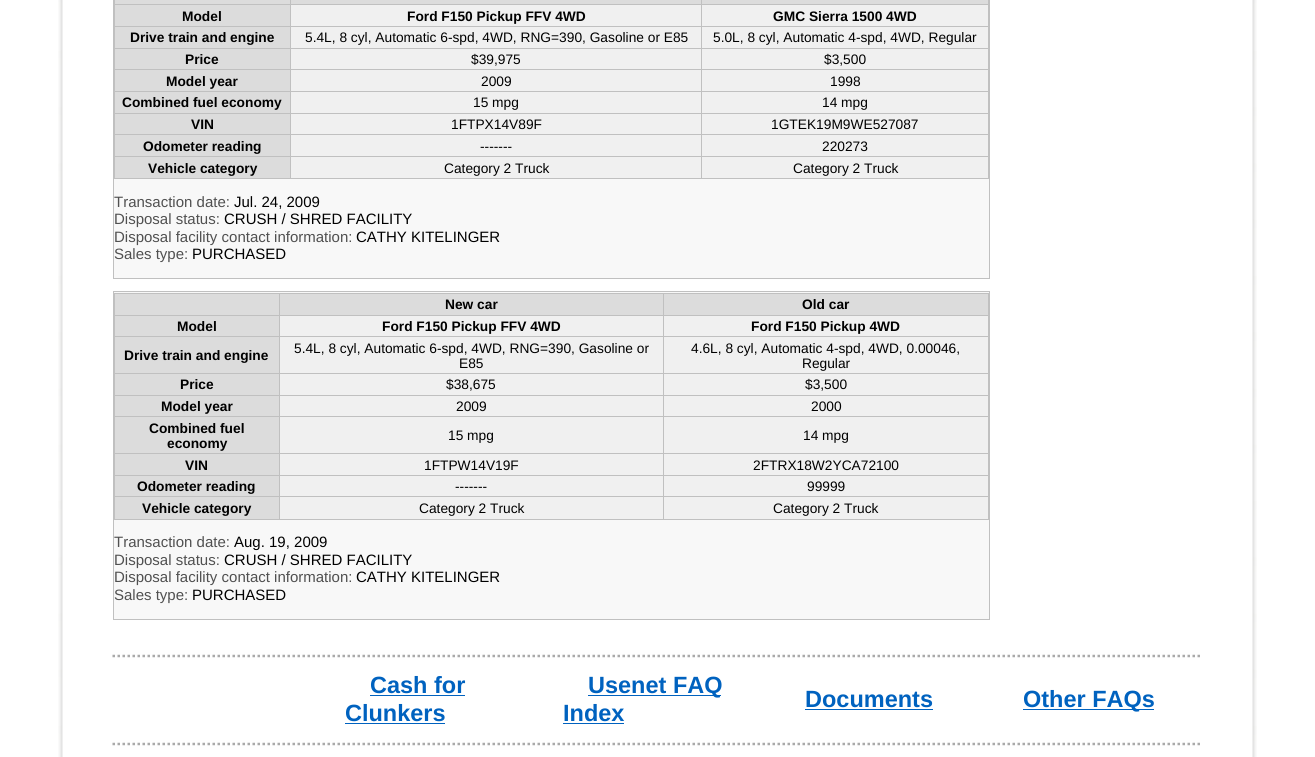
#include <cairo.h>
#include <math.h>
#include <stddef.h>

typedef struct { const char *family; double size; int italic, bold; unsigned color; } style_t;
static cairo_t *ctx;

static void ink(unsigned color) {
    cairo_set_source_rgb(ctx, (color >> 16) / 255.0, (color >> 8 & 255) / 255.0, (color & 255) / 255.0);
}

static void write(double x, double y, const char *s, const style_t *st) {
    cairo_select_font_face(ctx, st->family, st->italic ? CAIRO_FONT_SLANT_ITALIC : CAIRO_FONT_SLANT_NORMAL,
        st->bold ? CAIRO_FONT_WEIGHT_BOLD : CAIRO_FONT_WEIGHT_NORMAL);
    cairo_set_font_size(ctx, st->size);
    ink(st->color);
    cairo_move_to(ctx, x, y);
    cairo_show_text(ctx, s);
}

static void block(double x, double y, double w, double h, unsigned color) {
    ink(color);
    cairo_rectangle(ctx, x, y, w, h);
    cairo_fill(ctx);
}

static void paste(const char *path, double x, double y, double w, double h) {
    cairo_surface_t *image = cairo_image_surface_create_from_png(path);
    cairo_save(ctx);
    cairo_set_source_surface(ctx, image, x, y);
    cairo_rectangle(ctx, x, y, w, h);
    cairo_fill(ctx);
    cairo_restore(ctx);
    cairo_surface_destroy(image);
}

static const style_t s1 = {"Liberation Sans", 13.75, 0, 1, 0x000000};
static const style_t s2 = {"Liberation Sans", 13.75, 0, 0, 0x000000};
static const style_t s3 = {"Liberation Sans", 15, 0, 0, 0x505050};
static const style_t s4 = {"Liberation Sans", 15, 0, 0, 0x000000};
static const style_t s5 = {"Liberation Sans", 23.5, 0, 1, 0x0062bf};

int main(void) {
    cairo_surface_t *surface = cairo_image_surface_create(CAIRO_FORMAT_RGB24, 1315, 757);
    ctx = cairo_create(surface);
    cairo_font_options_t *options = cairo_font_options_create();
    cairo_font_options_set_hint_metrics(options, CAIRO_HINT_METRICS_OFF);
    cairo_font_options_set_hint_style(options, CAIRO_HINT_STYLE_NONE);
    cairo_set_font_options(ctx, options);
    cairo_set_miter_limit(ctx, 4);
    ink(0xffffff);
    cairo_paint(ctx);
    paste("pic1.png", 58, 0, 5, 757);
    block(114, 179, 875, 99, 0xf8f8f8);
    cairo_rectangle(ctx, 113.5, -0.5, 876, 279);
    ink(0xc0c0c0);
    cairo_set_line_width(ctx, 1);
    cairo_stroke(ctx);
    block(291, 5, 697, 173, 0xf0f0f0);
    block(115, 0, 874, 4, 0xdcdcdc);
    block(701, 4, 288, 1, 0xc0c0c0);
    block(701, 26, 288, 1, 0xc0c0c0);
    block(701, 48, 288, 1, 0xc0c0c0);
    block(701, 69, 288, 1, 0xc0c0c0);
    block(701, 91, 288, 1, 0xc0c0c0);
    block(701, 113, 288, 1, 0xc0c0c0);
    block(701, 134, 288, 1, 0xc0c0c0);
    block(701, 156, 288, 1, 0xc0c0c0);
    block(988, 156, 1, 23, 0xc0c0c0);
    block(701, 178, 288, 1, 0xc0c0c0);
    block(701, 156, 1, 23, 0xc0c0c0);
    block(290, 156, 413, 1, 0xc0c0c0);
    block(701, 134, 1, 24, 0xc0c0c0);
    block(290, 134, 413, 1, 0xc0c0c0);
    block(701, 113, 1, 22, 0xc0c0c0);
    block(290, 113, 413, 1, 0xc0c0c0);
    block(701, 91, 1, 23, 0xc0c0c0);
    block(290, 91, 413, 1, 0xc0c0c0);
    block(701, 69, 1, 24, 0xc0c0c0);
    block(290, 69, 413, 1, 0xc0c0c0);
    block(701, 48, 1, 22, 0xc0c0c0);
    block(290, 48, 413, 1, 0xc0c0c0);
    block(701, 26, 1, 23, 0xc0c0c0);
    block(290, 26, 413, 1, 0xc0c0c0);
    block(701, 4, 1, 24, 0xc0c0c0);
    block(290, 4, 413, 1, 0xc0c0c0);
    block(290, 178, 413, 1, 0xc0c0c0);
    block(290, 156, 1, 23, 0xc0c0c0);
    block(114, 156, 177, 1, 0xc0c0c0);
    block(290, 134, 1, 24, 0xc0c0c0);
    block(114, 134, 177, 1, 0xc0c0c0);
    block(290, 113, 1, 22, 0xc0c0c0);
    block(114, 113, 177, 1, 0xc0c0c0);
    block(290, 91, 1, 23, 0xc0c0c0);
    block(114, 91, 177, 1, 0xc0c0c0);
    block(290, 69, 1, 24, 0xc0c0c0);
    block(114, 69, 177, 1, 0xc0c0c0);
    block(290, 48, 1, 22, 0xc0c0c0);
    block(114, 48, 177, 1, 0xc0c0c0);
    block(290, 26, 1, 23, 0xc0c0c0);
    block(114, 26, 177, 1, 0xc0c0c0);
    block(290, 4, 1, 24, 0xc0c0c0);
    block(114, 4, 177, 1, 0xc0c0c0);
    block(290, 0, 1, 5, 0xc0c0c0);
    block(701, 0, 1, 5, 0xc0c0c0);
    block(115, 5, 175, 21, 0xdcdcdc);
    block(114, 178, 177, 1, 0xc0c0c0);
    block(114, 156, 1, 23, 0xc0c0c0);
    block(114, 134, 1, 24, 0xc0c0c0);
    block(114, 113, 1, 22, 0xc0c0c0);
    block(114, 91, 1, 23, 0xc0c0c0);
    block(114, 69, 1, 24, 0xc0c0c0);
    block(114, 48, 1, 22, 0xc0c0c0);
    block(114, 26, 1, 23, 0xc0c0c0);
    block(114, 0, 1, 28, 0xc0c0c0);
    write(182, 21, "Model", &s1);
    write(407, 21, "Ford F150 Pickup FFV 4WD", &s1);
    block(988, 134, 1, 24, 0xc0c0c0);
    block(988, 113, 1, 22, 0xc0c0c0);
    block(988, 91, 1, 23, 0xc0c0c0);
    block(988, 69, 1, 24, 0xc0c0c0);
    block(988, 48, 1, 22, 0xc0c0c0);
    block(988, 26, 1, 23, 0xc0c0c0);
    block(988, 0, 1, 28, 0xc0c0c0);
    write(773, 21, "GMC Sierra 1500 4WD", &s1);
    block(115, 27, 175, 21, 0xdcdcdc);
    write(130, 42, "Drive train and engine", &s1);
    write(305, 42, "5.4L, 8 cyl, Automatic 6-spd, 4WD, RNG=390, Gasoline or E85", &s2);
    write(713, 42, "5.0L, 8 cyl, Automatic 4-spd, 4WD, Regular", &s2);
    block(115, 49, 175, 20, 0xdcdcdc);
    write(185, 64, "Price", &s1);
    write(471, 64, "$39,975", &s2);
    write(824, 64, "$3,500", &s2);
    block(115, 70, 175, 21, 0xdcdcdc);
    write(166, 86, "Model year", &s1);
    write(481, 86, "2009", &s2);
    write(830, 86, "1998", &s2);
    block(115, 92, 175, 21, 0xdcdcdc);
    write(122, 107, "Combined fuel economy", &s1);
    write(473, 107, "15 mpg", &s2);
    write(822, 107, "14 mpg", &s2);
    block(115, 114, 175, 20, 0xdcdcdc);
    write(191, 129, "VIN", &s1);
    write(451, 129, "1FTPX14V89F", &s2);
    write(771, 129, "1GTEK19M9WE527087", &s2);
    block(115, 135, 175, 21, 0xdcdcdc);
    write(143, 151, "Odometer reading", &s1);
    write(480, 151, "-------", &s2);
    write(822, 151, "220273", &s2);
    block(115, 157, 175, 21, 0xdcdcdc);
    write(148, 173, "Vehicle category", &s1);
    write(444, 173, "Category 2 Truck", &s2);
    write(793, 173, "Category 2 Truck", &s2);
    write(114, 207, "Transaction date:", &s3);
    write(234, 207, "Jul. 24, 2009", &s4);
    write(114, 224, "Disposal status:", &s3);
    write(224, 224, "CRUSH / SHRED FACILITY", &s4);
    write(114, 242, "Disposal facility contact information:", &s3);
    write(356, 242, "CATHY KITELINGER", &s4);
    write(114, 259, "Sales type:", &s3);
    write(192, 259, "PURCHASED", &s4);
    ink(0xf8f8f8);
    cairo_rectangle(ctx, 113.5, 291.5, 876, 328);
    cairo_fill_preserve(ctx);
    ink(0xc0c0c0);
    cairo_stroke(ctx);
    block(280, 316, 708, 203, 0xf0f0f0);
    block(115, 294, 164, 21, 0xdcdcdc);
    block(663, 293, 326, 1, 0xc0c0c0);
    block(663, 315, 326, 1, 0xc0c0c0);
    block(663, 336, 326, 1, 0xc0c0c0);
    block(663, 373, 326, 1, 0xc0c0c0);
    block(663, 395, 326, 1, 0xc0c0c0);
    block(663, 416, 326, 1, 0xc0c0c0);
    block(663, 453, 326, 1, 0xc0c0c0);
    block(663, 475, 326, 1, 0xc0c0c0);
    block(663, 496, 326, 1, 0xc0c0c0);
    block(988, 496, 1, 24, 0xc0c0c0);
    block(663, 519, 326, 1, 0xc0c0c0);
    block(663, 496, 1, 24, 0xc0c0c0);
    block(279, 496, 385, 1, 0xc0c0c0);
    block(663, 475, 1, 23, 0xc0c0c0);
    block(279, 475, 385, 1, 0xc0c0c0);
    block(663, 453, 1, 23, 0xc0c0c0);
    block(279, 453, 385, 1, 0xc0c0c0);
    block(663, 416, 1, 38, 0xc0c0c0);
    block(279, 416, 385, 1, 0xc0c0c0);
    block(663, 395, 1, 23, 0xc0c0c0);
    block(279, 395, 385, 1, 0xc0c0c0);
    block(663, 373, 1, 23, 0xc0c0c0);
    block(279, 373, 385, 1, 0xc0c0c0);
    block(663, 336, 1, 38, 0xc0c0c0);
    block(279, 336, 385, 1, 0xc0c0c0);
    block(663, 315, 1, 23, 0xc0c0c0);
    block(279, 315, 385, 1, 0xc0c0c0);
    block(663, 293, 1, 23, 0xc0c0c0);
    block(279, 293, 385, 1, 0xc0c0c0);
    block(115, 396, 164, 57, 0xdcdcdc);
    block(115, 476, 164, 43, 0xdcdcdc);
    block(279, 519, 385, 1, 0xc0c0c0);
    block(279, 496, 1, 24, 0xc0c0c0);
    block(114, 496, 166, 1, 0xc0c0c0);
    block(279, 475, 1, 23, 0xc0c0c0);
    block(114, 475, 166, 1, 0xc0c0c0);
    block(279, 453, 1, 23, 0xc0c0c0);
    block(114, 453, 166, 1, 0xc0c0c0);
    block(279, 416, 1, 38, 0xc0c0c0);
    block(114, 416, 166, 1, 0xc0c0c0);
    block(279, 395, 1, 23, 0xc0c0c0);
    block(114, 395, 166, 1, 0xc0c0c0);
    block(279, 373, 1, 23, 0xc0c0c0);
    block(114, 373, 166, 1, 0xc0c0c0);
    block(279, 336, 1, 38, 0xc0c0c0);
    block(114, 336, 166, 1, 0xc0c0c0);
    block(279, 315, 1, 23, 0xc0c0c0);
    block(114, 315, 166, 1, 0xc0c0c0);
    block(279, 293, 1, 23, 0xc0c0c0);
    block(114, 293, 166, 1, 0xc0c0c0);
    block(114, 519, 166, 1, 0xc0c0c0);
    block(114, 496, 1, 24, 0xc0c0c0);
    block(114, 475, 1, 23, 0xc0c0c0);
    block(114, 453, 1, 23, 0xc0c0c0);
    block(114, 416, 1, 38, 0xc0c0c0);
    block(114, 395, 1, 23, 0xc0c0c0);
    block(114, 373, 1, 23, 0xc0c0c0);
    block(114, 336, 1, 38, 0xc0c0c0);
    block(114, 315, 1, 23, 0xc0c0c0);
    block(114, 293, 1, 23, 0xc0c0c0);
    block(280, 294, 383, 21, 0xdcdcdc);
    write(445, 309, "New car", &s1);
    block(664, 294, 324, 21, 0xdcdcdc);
    block(988, 475, 1, 23, 0xc0c0c0);
    block(988, 453, 1, 23, 0xc0c0c0);
    block(988, 416, 1, 38, 0xc0c0c0);
    block(988, 395, 1, 23, 0xc0c0c0);
    block(988, 373, 1, 23, 0xc0c0c0);
    block(988, 336, 1, 38, 0xc0c0c0);
    block(988, 315, 1, 23, 0xc0c0c0);
    block(988, 293, 1, 23, 0xc0c0c0);
    write(802, 309, "Old car", &s1);
    block(115, 316, 164, 20, 0xdcdcdc);
    write(177, 331, "Model", &s1);
    write(382, 331, "Ford F150 Pickup FFV 4WD", &s1);
    write(751, 331, "Ford F150 Pickup 4WD", &s1);
    block(115, 337, 164, 36, 0xdcdcdc);
    write(124, 360, "Drive train and engine", &s1);
    write(294, 353, "5.4L, 8 cyl, Automatic 6-spd, 4WD, RNG=390, Gasoline or", &s2);
    write(459, 368, "E85", &s2);
    write(691, 353, "4.6L, 8 cyl, Automatic 4-spd, 4WD, 0.00046,", &s2);
    write(802, 368, "Regular", &s2);
    block(115, 374, 164, 21, 0xdcdcdc);
    write(180, 389, "Price", &s1);
    write(446, 389, "$38,675", &s2);
    write(805, 389, "$3,500", &s2);
    write(161, 411, "Model year", &s1);
    write(456, 411, "2009", &s2);
    write(811, 411, "2000", &s2);
    write(149, 433, "Combined fuel", &s1);
    write(167, 448, "economy", &s1);
    write(448, 440, "15 mpg", &s2);
    write(803, 440, "14 mpg", &s2);
    block(115, 454, 164, 21, 0xdcdcdc);
    write(185, 470, "VIN", &s1);
    write(424, 470, "1FTPW14V19F", &s2);
    write(753, 470, "2FTRX18W2YCA72100", &s2);
    write(137, 491, "Odometer reading", &s1);
    write(455, 491, "-------", &s2);
    write(807, 491, "99999", &s2);
    write(142, 513, "Vehicle category", &s1);
    write(419, 513, "Category 2 Truck", &s2);
    write(773, 513, "Category 2 Truck", &s2);
    write(114, 547, "Transaction date:", &s3);
    write(234, 547, "Aug. 19, 2009", &s4);
    write(114, 565, "Disposal status:", &s3);
    write(224, 565, "CRUSH / SHRED FACILITY", &s4);
    write(114, 582, "Disposal facility contact information:", &s3);
    write(356, 582, "CATHY KITELINGER", &s4);
    write(114, 600, "Sales type:", &s3);
    write(192, 600, "PURCHASED", &s4);
    cairo_new_path(ctx);
    cairo_move_to(ctx, 112.5, 656);
    cairo_line_to(ctx, 1202.5, 656);
    ink(0xaaaaaa);
    cairo_set_line_width(ctx, 2.5);
    cairo_set_dash(ctx, (double[]){2.5, 2.5}, 2, 0);
    cairo_stroke(ctx);
    cairo_new_path(ctx);
    cairo_move_to(ctx, 112.5, 744);
    cairo_line_to(ctx, 1202.5, 744);
    cairo_stroke(ctx);
    write(370, 693, "Cash for", &s5);
    block(370, 695, 95, 1, 0x0062bf);
    write(345, 721, "Clunkers", &s5);
    block(345, 723, 100, 1, 0x0062bf);
    block(588, 695, 133, 1, 0x0062bf);
    write(588, 693, "Usenet FAQ", &s5);
    write(563, 721, "Index", &s5);
    block(563, 723, 61, 1, 0x0062bf);
    write(805, 707, "Documents", &s5);
    block(805, 709, 128, 1, 0x0062bf);
    block(1023, 709, 131, 1, 0x0062bf);
    write(1023, 707, "Other FAQs", &s5);
    paste("pic2.png", 1252, 0, 5, 757);
    cairo_surface_write_to_png(surface, "screenshot.png");
    cairo_font_options_destroy(options);
    cairo_destroy(ctx);
    cairo_surface_destroy(surface);
    return 0;
}
